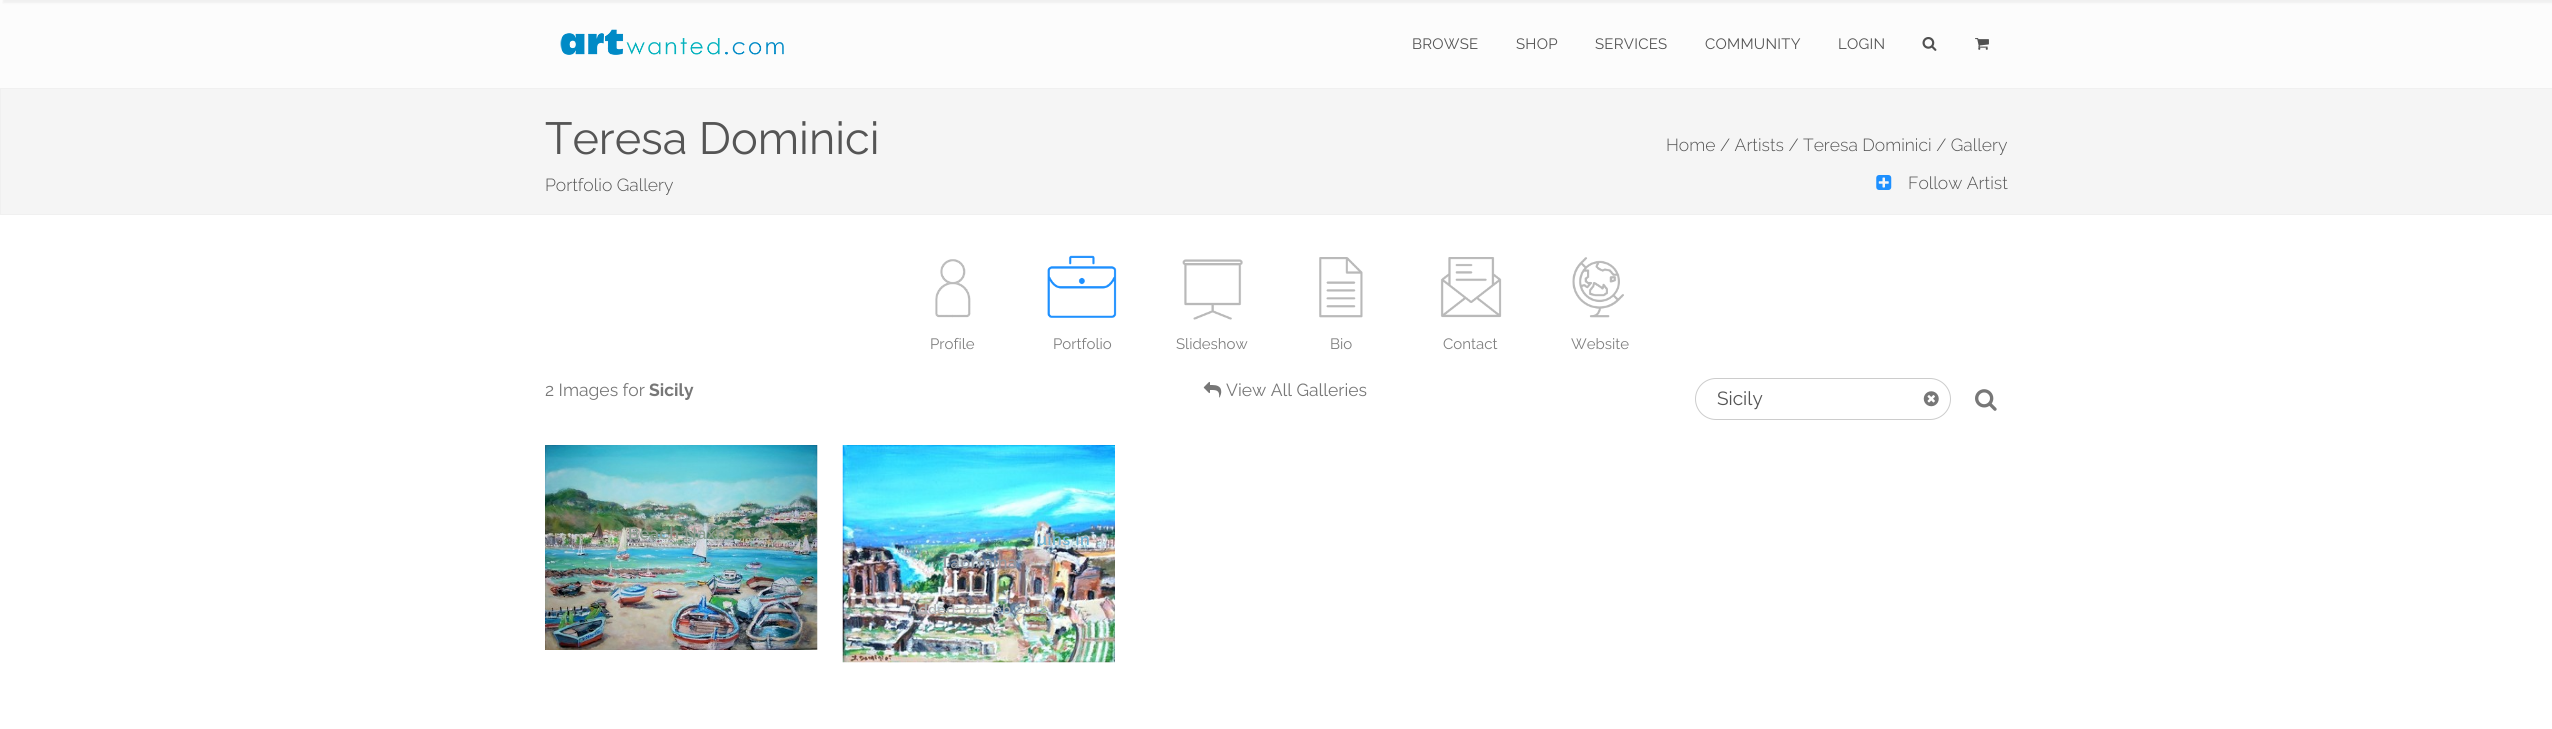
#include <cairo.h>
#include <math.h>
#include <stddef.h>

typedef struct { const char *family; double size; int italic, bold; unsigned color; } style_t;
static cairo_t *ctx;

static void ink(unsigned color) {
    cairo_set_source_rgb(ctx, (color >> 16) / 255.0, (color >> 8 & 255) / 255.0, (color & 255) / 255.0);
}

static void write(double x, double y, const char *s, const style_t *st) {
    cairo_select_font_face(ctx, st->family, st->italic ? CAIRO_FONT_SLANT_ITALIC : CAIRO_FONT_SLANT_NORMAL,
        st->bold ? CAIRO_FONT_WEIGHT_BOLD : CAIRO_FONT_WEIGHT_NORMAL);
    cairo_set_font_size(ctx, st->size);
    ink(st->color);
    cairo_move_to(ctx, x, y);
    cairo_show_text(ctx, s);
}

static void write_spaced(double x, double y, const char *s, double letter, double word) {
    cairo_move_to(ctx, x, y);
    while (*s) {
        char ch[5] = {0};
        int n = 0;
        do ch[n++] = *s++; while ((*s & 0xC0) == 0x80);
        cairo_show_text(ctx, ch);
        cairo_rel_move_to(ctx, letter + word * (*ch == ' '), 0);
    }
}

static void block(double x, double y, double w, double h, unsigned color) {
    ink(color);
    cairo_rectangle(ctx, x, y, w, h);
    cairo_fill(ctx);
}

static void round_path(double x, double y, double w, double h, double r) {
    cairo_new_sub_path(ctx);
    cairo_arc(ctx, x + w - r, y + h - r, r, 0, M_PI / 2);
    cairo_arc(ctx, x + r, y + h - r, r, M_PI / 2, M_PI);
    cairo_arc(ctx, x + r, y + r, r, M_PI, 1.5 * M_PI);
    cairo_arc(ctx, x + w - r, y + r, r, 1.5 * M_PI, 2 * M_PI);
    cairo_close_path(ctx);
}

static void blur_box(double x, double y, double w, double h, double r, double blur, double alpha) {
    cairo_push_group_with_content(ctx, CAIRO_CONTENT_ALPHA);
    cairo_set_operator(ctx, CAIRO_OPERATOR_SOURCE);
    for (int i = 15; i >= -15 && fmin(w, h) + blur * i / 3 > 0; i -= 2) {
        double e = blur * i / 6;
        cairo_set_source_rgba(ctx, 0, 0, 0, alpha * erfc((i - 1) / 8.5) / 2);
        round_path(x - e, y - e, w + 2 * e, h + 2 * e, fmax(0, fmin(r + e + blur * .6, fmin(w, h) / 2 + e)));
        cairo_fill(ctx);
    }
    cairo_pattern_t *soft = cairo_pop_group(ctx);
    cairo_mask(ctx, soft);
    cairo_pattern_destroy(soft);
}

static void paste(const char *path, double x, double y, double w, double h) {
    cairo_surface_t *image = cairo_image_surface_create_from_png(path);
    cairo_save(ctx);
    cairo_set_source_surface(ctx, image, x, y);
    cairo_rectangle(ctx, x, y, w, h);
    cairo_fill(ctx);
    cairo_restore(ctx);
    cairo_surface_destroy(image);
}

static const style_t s1 = {"Raleway", 45, 0, 0, 0x555555};
static const style_t s2 = {"Raleway Light", 17.5, 0, 0, 0x555555};
static const style_t s3 = {"Raleway", 15, 0, 0, 0x808080};
static const style_t s4 = {"Raleway", 17.5, 0, 0, 0x777777};
static const style_t s5 = {"Raleway", 17.5, 0, 1, 0x777777};
static const style_t s6 = {"Raleway", 19, 0, 0, 0x555555};

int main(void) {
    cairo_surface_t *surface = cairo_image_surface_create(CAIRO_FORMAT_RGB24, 2552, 729);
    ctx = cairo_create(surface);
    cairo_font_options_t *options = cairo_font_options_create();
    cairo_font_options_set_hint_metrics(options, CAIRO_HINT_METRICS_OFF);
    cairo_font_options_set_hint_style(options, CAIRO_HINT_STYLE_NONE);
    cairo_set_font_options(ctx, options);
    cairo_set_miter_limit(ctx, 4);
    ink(0xffffff);
    cairo_paint(ctx);
    block(0, 0, 2552, 88, 0xfcfcfc);
    ink(0x000000);
    blur_box(3, -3, 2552, 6, 0, 1, 0.05);
    paste("pic1.png", 560, 29, 224, 26);
    cairo_select_font_face(ctx, "Raleway", CAIRO_FONT_SLANT_NORMAL, CAIRO_FONT_WEIGHT_NORMAL);
    cairo_set_font_size(ctx, 15);
    ink(0x555555);
    write_spaced(1412, 49, "BROWSE", 0.25, 0);
    write_spaced(1516, 49, "SHOP", 0.25, 0);
    write_spaced(1595, 49, "SERVICES", 0.25, 0);
    write_spaced(1705, 49, "COMMUNITY", 0.25, 0);
    write_spaced(1838, 49, "LOGIN", 0.25, 0);
    paste("pic2.png", 1922, 37, 15, 14);
    paste("pic3.png", 1975, 38, 14, 12);
    ink(0xf5f5f5);
    cairo_rectangle(ctx, 0.5, 88.5, 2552, 126);
    cairo_fill_preserve(ctx);
    ink(0xf0f0f0);
    cairo_set_line_width(ctx, 1);
    cairo_stroke(ctx);
    write(545, 154, "Teresa Dominici", &s1);
    write(545, 191, "Portfolio Gallery", &s2);
    write(1666, 151, "Home / Artists / Teresa Dominici / Gallery", &s2);
    paste("pic4.png", 1876, 175, 16, 15);
    write(1908, 189, "Follow Artist", &s2);
    paste("pic5.png", 935, 259, 36, 59);
    write(930, 349, "Profile", &s3);
    paste("pic6.png", 1047, 255, 70, 63);
    write(1053, 349, "Portfolio", &s3);
    paste("pic7.png", 1182, 259, 61, 61);
    write(1176, 349, "Slideshow", &s3);
    paste("pic8.png", 1319, 257, 44, 61);
    write(1330, 349, "Bio", &s3);
    paste("pic9.png", 1440, 257, 62, 61);
    write(1443, 349, "Contact", &s3);
    paste("pic10.png", 1572, 257, 52, 61);
    write(1571, 349, "Website", &s3);
    write(545, 396, "2 Images for", &s4);
    write(649, 396, "Sicily", &s5);
    paste("pic11.png", 1203, 381, 19, 17);
    write(1226, 396, "View All Galleries", &s4);
    round_path(1695.5, 378.5, 255, 41, 20.5);
    ink(0xcccccc);
    cairo_stroke(ctx);
    write(1717, 405, "Sicily", &s6);
    paste("pic12.png", 1923, 391, 16, 16);
    paste("pic13.png", 1975, 389, 22, 22);
    paste("pic14.png", 545, 445, 273, 205);
    cairo_select_font_face(ctx, "Raleway SemiBold", CAIRO_FONT_SLANT_NORMAL, CAIRO_FONT_WEIGHT_NORMAL);
    cairo_set_font_size(ctx, 16.25);
    ink(0x8c9d90);
    write_spaced(628, 539, "Beach Naxos", 0.6, 0);
    paste("pic15.png", 842, 445, 273, 218);
    ink(0x6eb4d4);
    write_spaced(1037, 545, "uins in", 0.6, 0);
    ink(0x959aa1);
    write_spaced(940, 568, "Taormina", 0.6, 0);
    cairo_set_font_size(ctx, 13.75);
    ink(0xafb3b3);
    write_spaced(909, 614, "Added: 04 Feb 2012", 0.6, 0);
    cairo_surface_write_to_png(surface, "screenshot.png");
    cairo_font_options_destroy(options);
    cairo_destroy(ctx);
    cairo_surface_destroy(surface);
    return 0;
}
